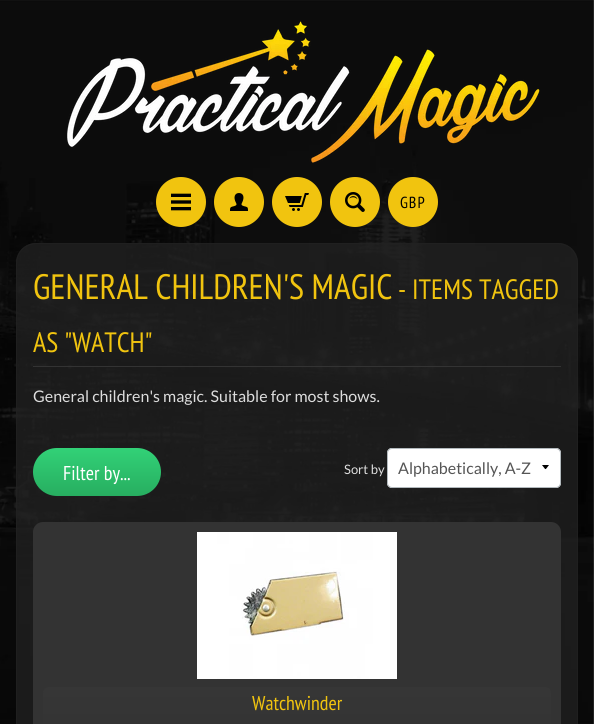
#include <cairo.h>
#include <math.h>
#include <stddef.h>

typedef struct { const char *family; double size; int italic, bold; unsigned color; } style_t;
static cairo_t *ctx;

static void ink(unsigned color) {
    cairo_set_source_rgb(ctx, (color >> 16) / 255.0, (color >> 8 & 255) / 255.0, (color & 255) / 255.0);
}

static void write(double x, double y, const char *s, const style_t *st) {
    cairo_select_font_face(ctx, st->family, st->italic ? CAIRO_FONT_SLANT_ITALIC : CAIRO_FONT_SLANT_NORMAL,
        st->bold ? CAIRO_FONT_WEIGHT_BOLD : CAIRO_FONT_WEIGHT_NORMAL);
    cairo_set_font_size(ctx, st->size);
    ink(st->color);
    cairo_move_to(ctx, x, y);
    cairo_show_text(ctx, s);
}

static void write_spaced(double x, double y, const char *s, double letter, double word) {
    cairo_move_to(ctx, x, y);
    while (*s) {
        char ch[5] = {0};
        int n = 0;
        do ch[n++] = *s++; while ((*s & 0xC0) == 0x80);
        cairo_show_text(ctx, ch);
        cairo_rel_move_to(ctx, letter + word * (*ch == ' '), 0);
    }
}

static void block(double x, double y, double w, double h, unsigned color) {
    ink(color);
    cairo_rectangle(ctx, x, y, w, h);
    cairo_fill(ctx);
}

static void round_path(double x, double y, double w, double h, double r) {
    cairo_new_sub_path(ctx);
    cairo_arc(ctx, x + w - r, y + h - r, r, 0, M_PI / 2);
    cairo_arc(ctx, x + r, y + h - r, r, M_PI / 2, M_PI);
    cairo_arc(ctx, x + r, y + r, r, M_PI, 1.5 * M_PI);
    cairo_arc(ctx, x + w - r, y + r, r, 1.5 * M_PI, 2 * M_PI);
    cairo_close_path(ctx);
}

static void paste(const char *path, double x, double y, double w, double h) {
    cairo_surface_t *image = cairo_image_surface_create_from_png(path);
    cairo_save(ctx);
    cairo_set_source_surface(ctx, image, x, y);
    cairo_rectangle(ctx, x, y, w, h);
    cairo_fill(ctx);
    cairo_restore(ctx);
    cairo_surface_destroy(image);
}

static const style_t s1 = {"PT Sans Narrow", 35.25, 0, 0, 0xf1c40f};
static const style_t s2 = {"PT Sans Narrow", 28, 0, 0, 0xf1c40f};
static const style_t s3 = {"Lato", 16, 0, 0, 0xdddddd};
static const style_t s4 = {"PT Sans Narrow", 20, 0, 0, 0xffffff};
static const style_t s5 = {"Lato", 13, 0, 0, 0xdddddd};
static const style_t s6 = {"Lato", 16, 0, 0, 0x555555};
static const style_t s7 = {"PT Sans Narrow", 20, 0, 0, 0xf1c40f};

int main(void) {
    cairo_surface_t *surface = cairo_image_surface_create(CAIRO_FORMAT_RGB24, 594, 724);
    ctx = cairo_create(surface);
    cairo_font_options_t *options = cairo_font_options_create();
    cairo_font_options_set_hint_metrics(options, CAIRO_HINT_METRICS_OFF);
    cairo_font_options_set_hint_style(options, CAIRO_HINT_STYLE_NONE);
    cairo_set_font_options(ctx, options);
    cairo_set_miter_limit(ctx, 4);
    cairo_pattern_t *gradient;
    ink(0xffffff);
    cairo_paint(ctx);
    paste("pic1.png", 0, 0, 594, 724);
    paste("pic2.png", 67, 21, 473, 142);
    ink(0xf1c40f);
    cairo_arc(ctx, 181, 202, 23.5, 0, 2 * M_PI);
    cairo_fill_preserve(ctx);
    cairo_set_line_width(ctx, 3);
    cairo_stroke(ctx);
    paste("pic3.png", 171, 193, 20, 18);
    cairo_arc(ctx, 239, 202, 23.5, 0, 2 * M_PI);
    cairo_fill_preserve(ctx);
    cairo_stroke(ctx);
    paste("pic4.png", 230, 193, 18, 18);
    cairo_arc(ctx, 297, 202, 23.5, 0, 2 * M_PI);
    cairo_fill_preserve(ctx);
    cairo_stroke(ctx);
    paste("pic5.png", 285, 193, 24, 18);
    cairo_arc(ctx, 355, 202, 23.5, 0, 2 * M_PI);
    cairo_fill_preserve(ctx);
    cairo_stroke(ctx);
    paste("pic6.png", 345, 192, 20, 20);
    cairo_arc(ctx, 413, 202, 23.5, 0, 2 * M_PI);
    cairo_fill_preserve(ctx);
    cairo_stroke(ctx);
    cairo_select_font_face(ctx, "PT Sans Narrow", CAIRO_FONT_SLANT_NORMAL, CAIRO_FONT_WEIGHT_NORMAL);
    cairo_set_font_size(ctx, 16);
    ink(0x000000);
    write_spaced(400, 208, "GBP", 1, 0);
    cairo_set_source_rgba(ctx, 0.133, 0.133, 0.133, 0.75);
    round_path(16, 243, 562, 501, 20);
    cairo_fill(ctx);
    round_path(16.5, 243.5, 561, 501, 19.5);
    cairo_set_source_rgba(ctx, 0.133, 0.133, 0.133, 0.7);
    cairo_set_line_width(ctx, 1);
    cairo_stroke(ctx);
    block(33, 366, 528, 1, 0x333333);
    write(33, 299, "GENERAL CHILDREN'S MAGIC", &s1);
    write(398, 299, "- ITEMS TAGGED", &s2);
    write(33, 352, "AS \"WATCH\"", &s2);
    write(33, 402, "General children's magic. Suitable for most shows.", &s3);
    gradient = cairo_pattern_create_linear(97, 448, 97, 496);
    cairo_pattern_add_color_stop_rgba(gradient, 0, 0.196, 0.82, 0.467, 1);
    cairo_pattern_add_color_stop_rgba(gradient, 1, 0.153, 0.682, 0.376, 1);
    cairo_set_source(ctx, gradient);
    cairo_pattern_destroy(gradient);
    round_path(33, 448, 128, 48, 24);
    cairo_fill(ctx);
    write(63, 480, "Filter by...", &s4);
    write(344, 474, "Sort by", &s5);
    ink(0xffffff);
    round_path(387, 448, 174, 40, 5);
    cairo_fill(ctx);
    ink(0x000000);
    cairo_new_path(ctx);
    cairo_move_to(ctx, 542, 465);
    cairo_curve_to(ctx, 546.5, 470.5, 544.5, 470.5, 549, 465);
    cairo_close_path(ctx);
    cairo_fill(ctx);
    round_path(387.5, 448.5, 173, 39, 4.5);
    ink(0xb2b9bd);
    cairo_stroke(ctx);
    write(398, 474, "Alphabetically, A-Z", &s6);
    ink(0x333333);
    round_path(33, 522, 528, 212, 10);
    cairo_fill(ctx);
    paste("pic7.png", 197, 532, 200, 147);
    gradient = cairo_pattern_create_linear(297, 687, 297, 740);
    cairo_pattern_add_color_stop_rgba(gradient, 0, 0.212, 0.212, 0.212, 1);
    cairo_pattern_add_color_stop_rgba(gradient, 1, 0.2, 0.2, 0.2, 1);
    cairo_set_source(ctx, gradient);
    cairo_pattern_destroy(gradient);
    round_path(43, 687, 508, 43, 6);
    cairo_fill(ctx);
    write(252, 710, "Watchwinder", &s7);
    cairo_surface_write_to_png(surface, "screenshot.png");
    cairo_font_options_destroy(options);
    cairo_destroy(ctx);
    cairo_surface_destroy(surface);
    return 0;
}
